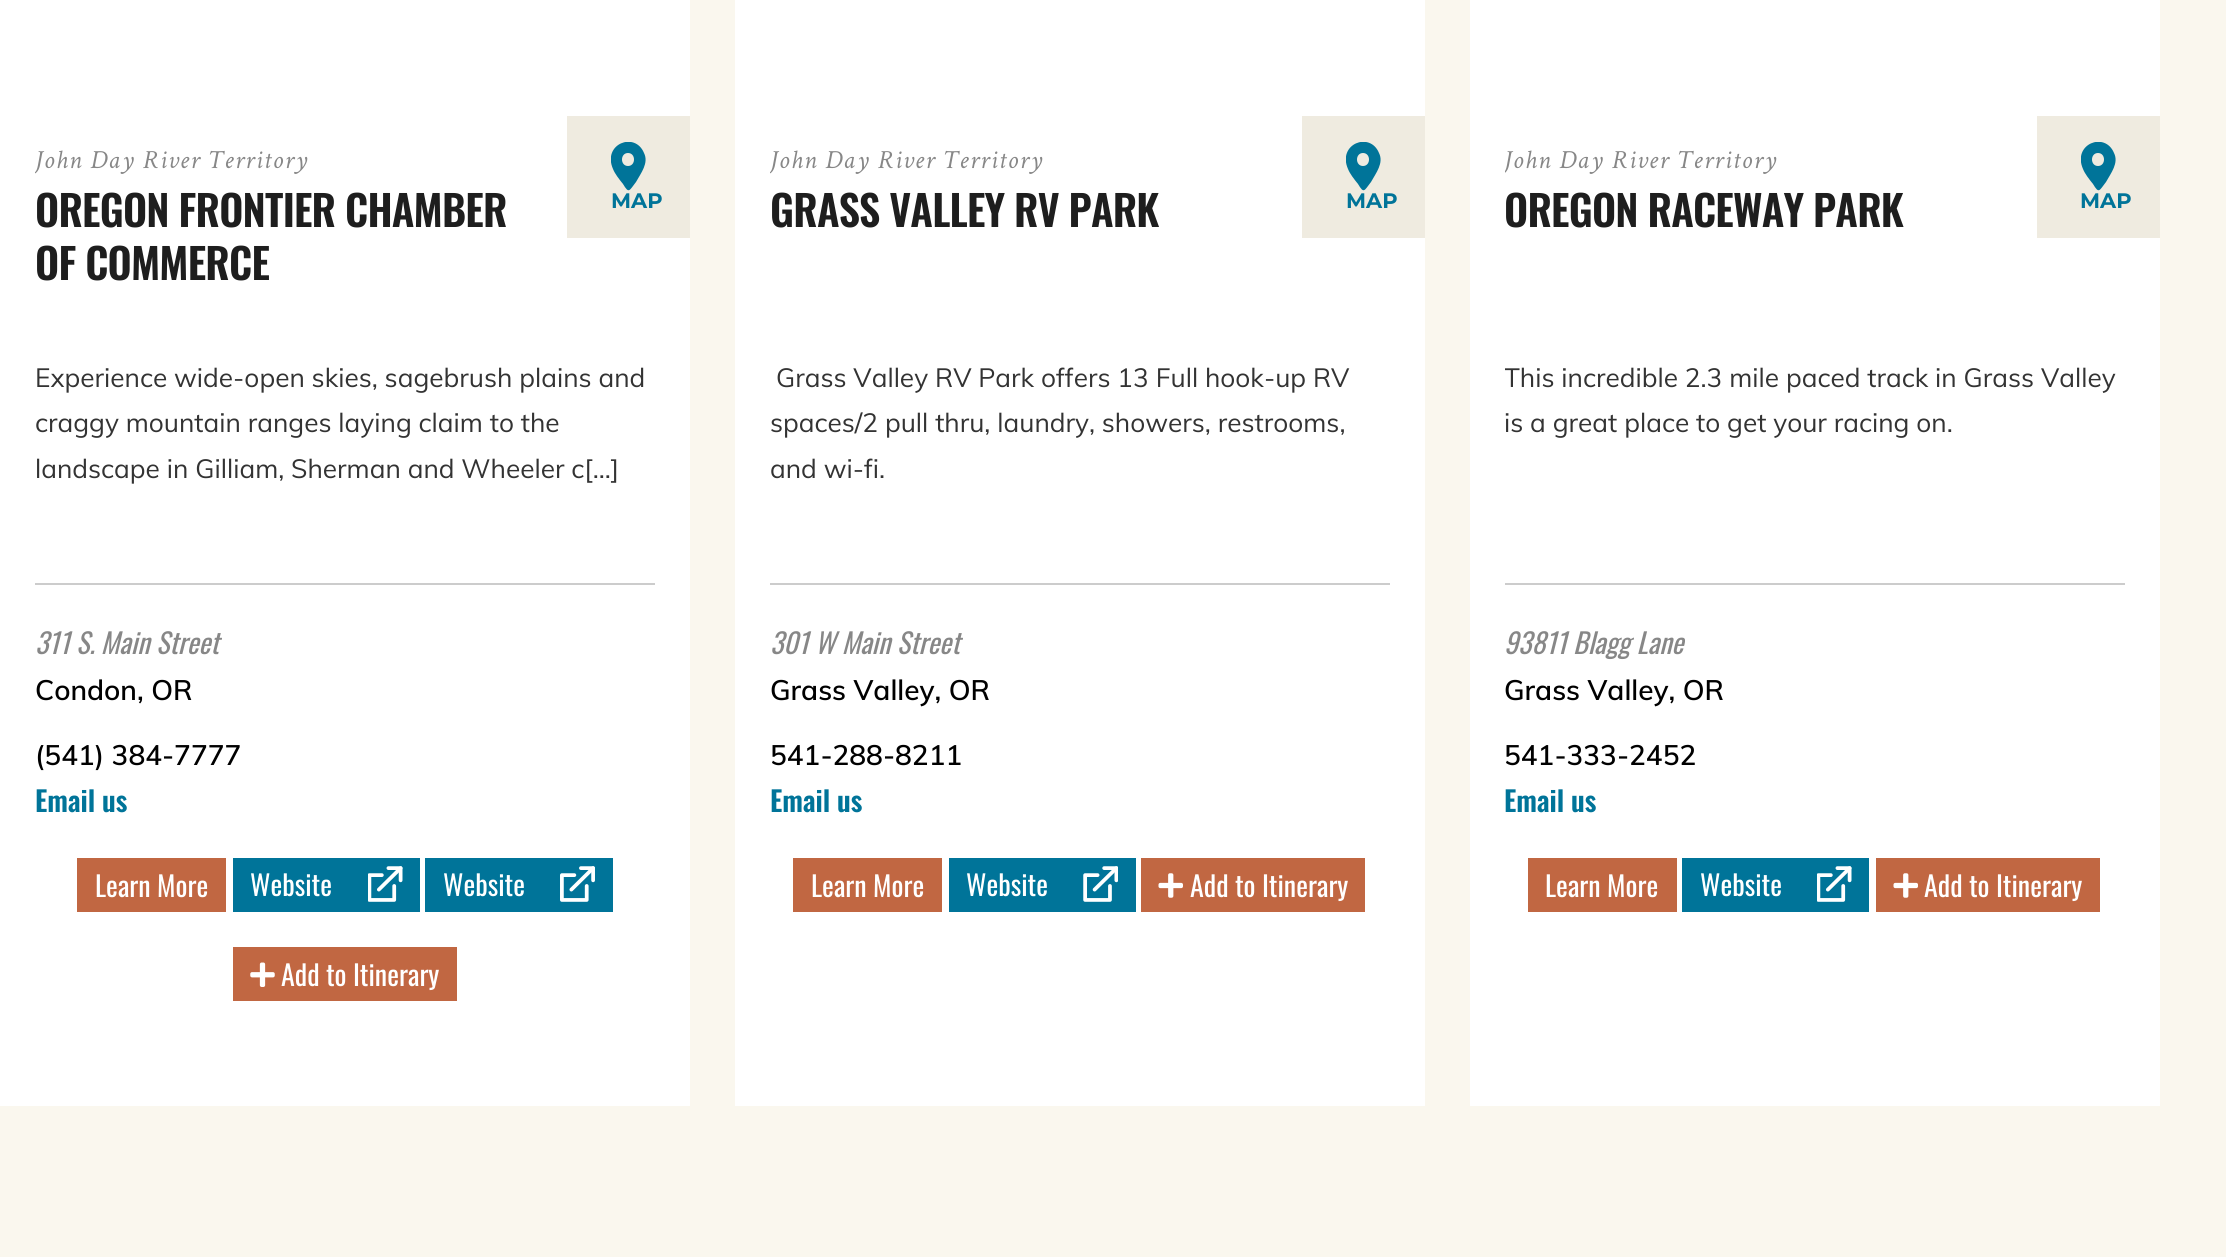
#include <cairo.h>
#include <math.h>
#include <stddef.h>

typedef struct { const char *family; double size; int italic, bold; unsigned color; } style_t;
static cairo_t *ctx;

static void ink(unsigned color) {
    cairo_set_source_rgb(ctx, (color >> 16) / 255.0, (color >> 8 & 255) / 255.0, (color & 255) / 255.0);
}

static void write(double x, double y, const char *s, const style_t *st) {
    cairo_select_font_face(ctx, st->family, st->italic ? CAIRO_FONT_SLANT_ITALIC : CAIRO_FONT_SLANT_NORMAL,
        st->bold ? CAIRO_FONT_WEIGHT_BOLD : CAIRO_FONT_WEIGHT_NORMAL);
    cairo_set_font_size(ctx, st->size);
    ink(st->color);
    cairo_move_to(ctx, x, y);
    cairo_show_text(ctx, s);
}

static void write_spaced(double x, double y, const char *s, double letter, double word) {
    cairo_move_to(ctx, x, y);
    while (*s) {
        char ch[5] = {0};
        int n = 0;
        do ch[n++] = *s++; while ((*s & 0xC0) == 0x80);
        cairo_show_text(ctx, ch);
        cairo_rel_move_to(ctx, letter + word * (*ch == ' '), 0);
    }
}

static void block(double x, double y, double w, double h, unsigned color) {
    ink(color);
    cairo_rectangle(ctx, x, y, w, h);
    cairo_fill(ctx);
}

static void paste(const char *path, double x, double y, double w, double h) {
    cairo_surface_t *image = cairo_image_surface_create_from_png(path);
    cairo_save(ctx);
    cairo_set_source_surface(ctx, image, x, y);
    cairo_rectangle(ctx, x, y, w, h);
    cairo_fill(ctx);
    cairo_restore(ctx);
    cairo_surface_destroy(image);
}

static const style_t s1 = {"Montserrat", 21, 0, 1, 0x007499};
static const style_t s2 = {"Muli", 26.25, 0, 0, 0x333333};
static const style_t s3 = {"Oswald", 28, 1, 0, 0x878787};
static const style_t s4 = {"Muli SemiBold", 28, 0, 0, 0x000000};
static const style_t s5 = {"Oswald SemiBold", 28, 0, 0, 0x007499};
static const style_t s6 = {"Oswald", 28, 0, 0, 0xffffff};

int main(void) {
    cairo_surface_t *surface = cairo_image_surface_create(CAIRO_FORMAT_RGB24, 2226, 1257);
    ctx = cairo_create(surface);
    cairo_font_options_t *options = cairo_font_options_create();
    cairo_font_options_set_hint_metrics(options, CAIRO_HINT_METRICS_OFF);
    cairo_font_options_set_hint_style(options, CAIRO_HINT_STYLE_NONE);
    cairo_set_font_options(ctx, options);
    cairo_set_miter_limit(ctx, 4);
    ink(0xfaf7ee);
    cairo_paint(ctx);
    block(0, 0, 690, 1106, 0xffffff);
    cairo_save(ctx);
    cairo_rectangle(ctx, 35, 128, 525, 227);
    cairo_clip(ctx);
    cairo_select_font_face(ctx, "Crimson Text", CAIRO_FONT_SLANT_ITALIC, CAIRO_FONT_WEIGHT_NORMAL);
    cairo_set_font_size(ctx, 26.25);
    ink(0x878787);
    write_spaced(35, 168, "John Day River Territory", 1.3, 0);
    cairo_restore(ctx);
    cairo_select_font_face(ctx, "Oswald SemiBold", CAIRO_FONT_SLANT_NORMAL, CAIRO_FONT_WEIGHT_NORMAL);
    cairo_set_font_size(ctx, 42);
    ink(0x1e1e1e);
    write_spaced(35, 227, "OREGON FRONTIER CHAMBER", -0.8, 0);
    write_spaced(35, 280, "OF COMMERCE", -0.8, 0);
    block(567, 116, 123, 122, 0xefebe0);
    cairo_save(ctx);
    cairo_rectangle(ctx, 611, 142, 35, 49);
    cairo_clip(ctx);
    ink(0x007499);
    cairo_new_path(ctx);
    cairo_move_to(ctx, 644, 153);
    cairo_curve_to(ctx, 635, 131, 602, 144, 613, 169);
    cairo_curve_to(ctx, 615, 174, 619, 179, 623, 184);
    cairo_curve_to(ctx, 629, 194, 629, 191, 636, 182);
    cairo_curve_to(ctx, 641, 173, 649, 163, 644, 153);
    cairo_close_path(ctx);
    cairo_move_to(ctx, 628, 166);
    cairo_curve_to(ctx, 620, 166, 620, 153, 628, 153);
    cairo_curve_to(ctx, 636, 153, 636, 166, 628, 166);
    cairo_close_path(ctx);
    cairo_fill(ctx);
    cairo_restore(ctx);
    write(611, 208, "MAP", &s1);
    write(35, 387, "Experience wide-open skies, sagebrush plains and", &s2);
    write(35, 432, "craggy mountain ranges laying claim to the", &s2);
    write(35, 478, "landscape in Gilliam, Sherman and Wheeler c[...]", &s2);
    block(35, 583, 620, 2, 0xcccccc);
    write(35, 654, "311 S. Main Street", &s3);
    write(35, 700, "Condon, OR", &s4);
    write(35, 765, "(541) 384-7777", &s4);
    write(35, 812, "Email us", &s5);
    block(77, 858, 149, 54, 0xc16742);
    write(95, 897, "Learn More", &s6);
    block(233, 858, 187, 54, 0x007499);
    write(250, 896, "Website", &s6);
    paste("pic1.png", 368, 866, 35, 36);
    block(425, 858, 188, 54, 0x007499);
    write(443, 896, "Website", &s6);
    paste("pic2.png", 560, 866, 35, 36);
    block(233, 947, 224, 54, 0xc16742);
    paste("pic3.png", 250, 962, 25, 25);
    write(281, 986, "Add to Itinerary", &s6);
    block(735, 0, 690, 1106, 0xffffff);
    cairo_save(ctx);
    cairo_rectangle(ctx, 770, 128, 439, 227);
    cairo_clip(ctx);
    cairo_select_font_face(ctx, "Crimson Text", CAIRO_FONT_SLANT_ITALIC, CAIRO_FONT_WEIGHT_NORMAL);
    cairo_set_font_size(ctx, 26.25);
    ink(0x878787);
    write_spaced(770, 168, "John Day River Territory", 1.3, 0);
    cairo_restore(ctx);
    cairo_select_font_face(ctx, "Oswald SemiBold", CAIRO_FONT_SLANT_NORMAL, CAIRO_FONT_WEIGHT_NORMAL);
    cairo_set_font_size(ctx, 42);
    ink(0x1e1e1e);
    write_spaced(770, 227, "GRASS VALLEY RV PARK", -0.8, 0);
    block(1302, 116, 123, 122, 0xefebe0);
    cairo_save(ctx);
    cairo_rectangle(ctx, 1346, 142, 35, 49);
    cairo_clip(ctx);
    ink(0x007499);
    cairo_new_path(ctx);
    cairo_move_to(ctx, 1379, 153);
    cairo_curve_to(ctx, 1370, 131, 1337, 144, 1348, 169);
    cairo_curve_to(ctx, 1350, 174, 1354, 179, 1358, 184);
    cairo_curve_to(ctx, 1364, 194, 1364, 191, 1371, 182);
    cairo_curve_to(ctx, 1376, 173, 1384, 163, 1379, 153);
    cairo_close_path(ctx);
    cairo_move_to(ctx, 1363, 166);
    cairo_curve_to(ctx, 1355, 166, 1355, 153, 1363, 153);
    cairo_curve_to(ctx, 1371, 153, 1371, 166, 1363, 166);
    cairo_close_path(ctx);
    cairo_fill(ctx);
    cairo_restore(ctx);
    write(1346, 208, "MAP", &s1);
    write(776, 387, "Grass Valley RV Park offers 13 Full hook-up RV", &s2);
    write(770, 432, "spaces/2 pull thru, laundry, showers, restrooms,", &s2);
    write(770, 478, "and wi-fi.", &s2);
    block(770, 583, 620, 2, 0xcccccc);
    write(770, 654, "301 W Main Street", &s3);
    write(770, 700, "Grass Valley, OR", &s4);
    write(770, 765, "541-288-8211", &s4);
    write(770, 812, "Email us", &s5);
    block(793, 858, 149, 54, 0xc16742);
    write(811, 897, "Learn More", &s6);
    block(949, 858, 187, 54, 0x007499);
    write(966, 896, "Website", &s6);
    paste("pic4.png", 1083, 866, 35, 36);
    block(1141, 858, 224, 54, 0xc16742);
    paste("pic5.png", 1158, 873, 25, 25);
    write(1190, 897, "Add to Itinerary", &s6);
    block(1470, 0, 690, 1106, 0xffffff);
    cairo_save(ctx);
    cairo_rectangle(ctx, 1505, 128, 450, 227);
    cairo_clip(ctx);
    cairo_select_font_face(ctx, "Crimson Text", CAIRO_FONT_SLANT_ITALIC, CAIRO_FONT_WEIGHT_NORMAL);
    cairo_set_font_size(ctx, 26.25);
    ink(0x878787);
    write_spaced(1504, 168, "John Day River Territory", 1.3, 0);
    cairo_restore(ctx);
    cairo_select_font_face(ctx, "Oswald SemiBold", CAIRO_FONT_SLANT_NORMAL, CAIRO_FONT_WEIGHT_NORMAL);
    cairo_set_font_size(ctx, 42);
    ink(0x1e1e1e);
    write_spaced(1504, 227, "OREGON RACEWAY PARK", -0.8, 0);
    block(2037, 116, 123, 122, 0xefebe0);
    cairo_save(ctx);
    cairo_rectangle(ctx, 2081, 142, 35, 49);
    cairo_clip(ctx);
    ink(0x007499);
    cairo_new_path(ctx);
    cairo_move_to(ctx, 2114, 153);
    cairo_curve_to(ctx, 2105, 131, 2072, 144, 2083, 169);
    cairo_curve_to(ctx, 2085, 174, 2089, 179, 2093, 184);
    cairo_curve_to(ctx, 2099, 194, 2099, 191, 2106, 182);
    cairo_curve_to(ctx, 2111, 173, 2119, 163, 2114, 153);
    cairo_close_path(ctx);
    cairo_move_to(ctx, 2098, 166);
    cairo_curve_to(ctx, 2090, 166, 2090, 153, 2098, 153);
    cairo_curve_to(ctx, 2106, 153, 2106, 166, 2098, 166);
    cairo_close_path(ctx);
    cairo_fill(ctx);
    cairo_restore(ctx);
    write(2080, 208, "MAP", &s1);
    cairo_save(ctx);
    cairo_rectangle(ctx, 1505, 355, 620, 193);
    cairo_clip(ctx);
    write(1504, 387, "This incredible 2.3 mile paced track in Grass Valley", &s2);
    cairo_restore(ctx);
    write(1504, 432, "is a great place to get your racing on.", &s2);
    block(1505, 583, 620, 2, 0xcccccc);
    write(1504, 654, "93811 Blagg Lane", &s3);
    write(1504, 700, "Grass Valley, OR", &s4);
    write(1504, 765, "541-333-2452", &s4);
    write(1504, 812, "Email us", &s5);
    block(1528, 858, 149, 54, 0xc16742);
    write(1545, 897, "Learn More", &s6);
    block(1682, 858, 187, 54, 0x007499);
    write(1700, 896, "Website", &s6);
    paste("pic1.png", 1817, 866, 35, 36);
    block(1876, 858, 224, 54, 0xc16742);
    paste("pic5.png", 1893, 873, 25, 25);
    write(1924, 897, "Add to Itinerary", &s6);
    cairo_surface_write_to_png(surface, "screenshot.png");
    cairo_font_options_destroy(options);
    cairo_destroy(ctx);
    cairo_surface_destroy(surface);
    return 0;
}
